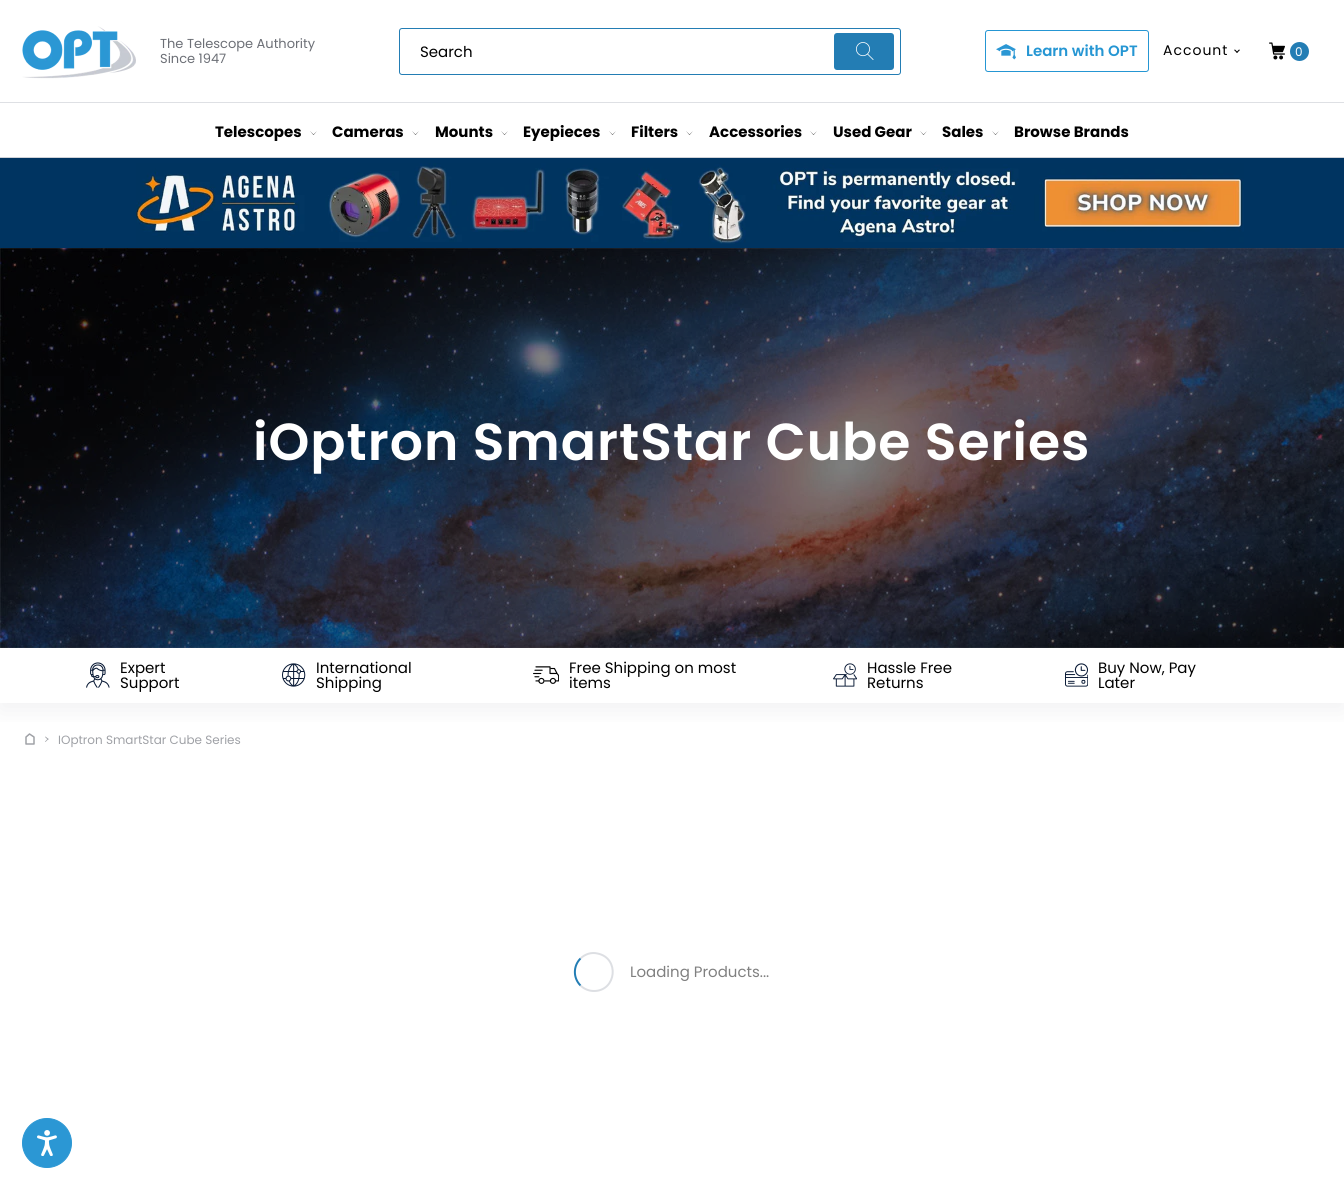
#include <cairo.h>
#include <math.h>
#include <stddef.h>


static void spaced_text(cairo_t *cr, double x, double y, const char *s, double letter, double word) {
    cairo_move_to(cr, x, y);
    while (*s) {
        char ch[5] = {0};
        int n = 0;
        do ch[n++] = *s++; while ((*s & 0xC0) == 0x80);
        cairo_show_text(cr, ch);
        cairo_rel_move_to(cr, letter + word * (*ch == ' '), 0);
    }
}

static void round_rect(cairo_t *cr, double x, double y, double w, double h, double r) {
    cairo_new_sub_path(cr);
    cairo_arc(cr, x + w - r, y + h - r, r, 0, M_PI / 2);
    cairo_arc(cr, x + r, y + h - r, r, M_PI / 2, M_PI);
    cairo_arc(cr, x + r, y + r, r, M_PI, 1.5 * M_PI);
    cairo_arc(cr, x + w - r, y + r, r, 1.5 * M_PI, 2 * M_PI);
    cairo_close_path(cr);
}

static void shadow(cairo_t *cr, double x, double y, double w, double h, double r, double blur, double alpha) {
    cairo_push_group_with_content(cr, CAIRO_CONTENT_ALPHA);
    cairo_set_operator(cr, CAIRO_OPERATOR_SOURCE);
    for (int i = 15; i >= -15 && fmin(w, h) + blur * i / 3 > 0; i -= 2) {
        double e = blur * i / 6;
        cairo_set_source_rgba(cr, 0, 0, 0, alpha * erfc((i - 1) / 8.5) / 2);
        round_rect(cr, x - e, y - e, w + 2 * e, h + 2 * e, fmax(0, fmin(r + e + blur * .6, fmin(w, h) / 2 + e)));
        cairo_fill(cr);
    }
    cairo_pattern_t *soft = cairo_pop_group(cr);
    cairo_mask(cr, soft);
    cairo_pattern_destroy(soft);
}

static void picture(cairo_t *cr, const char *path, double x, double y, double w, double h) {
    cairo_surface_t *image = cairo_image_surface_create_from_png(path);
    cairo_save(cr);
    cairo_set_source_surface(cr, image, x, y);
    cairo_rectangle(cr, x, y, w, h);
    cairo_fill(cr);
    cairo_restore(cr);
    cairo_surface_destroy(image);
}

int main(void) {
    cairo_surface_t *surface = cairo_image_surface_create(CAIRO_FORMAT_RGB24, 1344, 1198);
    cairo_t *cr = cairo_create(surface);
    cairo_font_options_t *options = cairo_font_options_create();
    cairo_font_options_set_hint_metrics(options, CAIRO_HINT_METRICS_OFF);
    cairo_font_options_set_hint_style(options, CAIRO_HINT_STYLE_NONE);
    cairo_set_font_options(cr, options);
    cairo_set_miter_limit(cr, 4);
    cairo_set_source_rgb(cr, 1, 1, 1);
    cairo_paint(cr);
    cairo_set_source_rgb(cr, 0.871, 0.878, 0.894);
    cairo_rectangle(cr, 0, 102, 1344, 1);
    cairo_fill(cr);
    picture(cr, "img1.png", 22, 26, 114, 53);
    cairo_select_font_face(cr, "Poppins", CAIRO_FONT_SLANT_NORMAL, CAIRO_FONT_WEIGHT_NORMAL);
    cairo_set_font_size(cr, 13);
    cairo_set_source_rgb(cr, 0.424, 0.435, 0.463);
    cairo_move_to(cr, 160, 48);
    cairo_show_text(cr, "The Telescope Authority");
    cairo_move_to(cr, 160, 63);
    cairo_show_text(cr, "Since 1947");
    round_rect(cr, 399.5, 28.5, 501, 46, 2.5);
    cairo_set_source_rgb(cr, 0.137, 0.49, 0.706);
    cairo_set_line_width(cr, 1);
    cairo_stroke(cr);
    cairo_set_font_size(cr, 15);
    cairo_set_source_rgb(cr, 0, 0, 0);
    cairo_move_to(cr, 420, 57);
    cairo_show_text(cr, "Search");
    cairo_set_source_rgb(cr, 0.137, 0.49, 0.706);
    round_rect(cr, 834, 33, 60, 37, 3);
    cairo_fill(cr);
    picture(cr, "img2.png", 856, 42, 18, 18);
    round_rect(cr, 985.5, 30.5, 163, 41, 2.5);
    cairo_set_source_rgb(cr, 0.145, 0.588, 0.827);
    cairo_stroke(cr);
    picture(cr, "img3.png", 996, 44, 20, 16);
    cairo_select_font_face(cr, "Poppins SemiBold", CAIRO_FONT_SLANT_NORMAL, CAIRO_FONT_WEIGHT_NORMAL);
    cairo_move_to(cr, 1026, 56);
    cairo_show_text(cr, "Learn with OPT");
    cairo_select_font_face(cr, "Poppins", CAIRO_FONT_SLANT_NORMAL, CAIRO_FONT_WEIGHT_NORMAL);
    cairo_set_font_size(cr, 14);
    cairo_set_source_rgb(cr, 0, 0, 0);
    spaced_text(cr, 1163, 55, "Account", 1, 0);
    cairo_new_path(cr);
    cairo_move_to(cr, 1239, 49.5);
    cairo_line_to(cr, 1240, 50);
    cairo_line_to(cr, 1237, 53);
    cairo_line_to(cr, 1236.5, 52);
    cairo_close_path(cr);
    cairo_fill(cr);
    cairo_new_path(cr);
    cairo_move_to(cr, 1235, 49.5);
    cairo_line_to(cr, 1237.5, 52);
    cairo_line_to(cr, 1237, 53);
    cairo_line_to(cr, 1234, 50);
    cairo_close_path(cr);
    cairo_fill(cr);
    picture(cr, "img4.png", 1269, 42, 16, 18);
    cairo_set_source_rgb(cr, 0.137, 0.49, 0.706);
    cairo_arc(cr, 1299.5, 51.5, 9.5, 0, 2 * M_PI);
    cairo_fill(cr);
    cairo_set_font_size(cr, 12);
    cairo_set_source_rgb(cr, 1, 1, 1);
    spaced_text(cr, 1295, 56, "0", 1, 0);
    cairo_set_source_rgb(cr, 0.812, 0.824, 0.847);
    cairo_rectangle(cr, 0, 157, 1344, 1);
    cairo_fill(cr);
    cairo_select_font_face(cr, "Poppins", CAIRO_FONT_SLANT_NORMAL, CAIRO_FONT_WEIGHT_BOLD);
    cairo_set_font_size(cr, 15);
    cairo_set_source_rgb(cr, 0, 0, 0);
    cairo_move_to(cr, 215, 137);
    cairo_show_text(cr, "Telescopes");
    cairo_new_path(cr);
    cairo_move_to(cr, 313.5, 135);
    cairo_line_to(cr, 310, 131);
    cairo_line_to(cr, 313.5, 134.5);
    cairo_line_to(cr, 317, 131);
    cairo_close_path(cr);
    cairo_fill(cr);
    cairo_move_to(cr, 332, 137);
    cairo_show_text(cr, "Cameras");
    cairo_new_path(cr);
    cairo_move_to(cr, 415.5, 135);
    cairo_line_to(cr, 412, 131);
    cairo_line_to(cr, 415.5, 134.5);
    cairo_line_to(cr, 419, 131);
    cairo_close_path(cr);
    cairo_fill(cr);
    cairo_move_to(cr, 435, 137);
    cairo_show_text(cr, "Mounts");
    cairo_new_path(cr);
    cairo_move_to(cr, 504.5, 135);
    cairo_line_to(cr, 501, 131);
    cairo_line_to(cr, 504.5, 134.5);
    cairo_line_to(cr, 508, 131);
    cairo_close_path(cr);
    cairo_fill(cr);
    cairo_move_to(cr, 523, 137);
    cairo_show_text(cr, "Eyepieces");
    cairo_new_path(cr);
    cairo_move_to(cr, 612.5, 135);
    cairo_line_to(cr, 609, 131);
    cairo_line_to(cr, 612.5, 134.5);
    cairo_line_to(cr, 616, 131);
    cairo_close_path(cr);
    cairo_fill(cr);
    cairo_move_to(cr, 631, 137);
    cairo_show_text(cr, "Filters");
    cairo_new_path(cr);
    cairo_move_to(cr, 689.5, 135);
    cairo_line_to(cr, 686, 131);
    cairo_line_to(cr, 689.5, 134.5);
    cairo_line_to(cr, 693, 131);
    cairo_close_path(cr);
    cairo_fill(cr);
    cairo_move_to(cr, 709, 137);
    cairo_show_text(cr, "Accessories");
    cairo_new_path(cr);
    cairo_move_to(cr, 813.5, 135);
    cairo_line_to(cr, 810, 131);
    cairo_line_to(cr, 813.5, 134.5);
    cairo_line_to(cr, 817, 131);
    cairo_close_path(cr);
    cairo_fill(cr);
    cairo_move_to(cr, 833, 137);
    cairo_show_text(cr, "Used Gear");
    cairo_new_path(cr);
    cairo_move_to(cr, 923.5, 135);
    cairo_line_to(cr, 920, 131);
    cairo_line_to(cr, 923.5, 134.5);
    cairo_line_to(cr, 927, 131);
    cairo_close_path(cr);
    cairo_fill(cr);
    cairo_move_to(cr, 942, 137);
    cairo_show_text(cr, "Sales");
    cairo_new_path(cr);
    cairo_move_to(cr, 995.5, 135);
    cairo_line_to(cr, 992, 131);
    cairo_line_to(cr, 995.5, 134.5);
    cairo_line_to(cr, 999, 131);
    cairo_close_path(cr);
    cairo_fill(cr);
    cairo_move_to(cr, 1014, 137);
    cairo_show_text(cr, "Browse Brands");
    cairo_set_source_rgb(cr, 0, 0.204, 0.38);
    cairo_rectangle(cr, 0, 158, 1344, 90);
    cairo_fill(cr);
    picture(cr, "img5.png", 136, 163, 1108, 81);
    cairo_save(cr);
    cairo_rectangle(cr, 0, 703, 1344, 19);
    cairo_clip(cr);
    cairo_set_source_rgb(cr, 0.518, 0.541, 0.584);
    shadow(cr, 0, 655, 1344, 55, 0, 12.5, 0.12);
    cairo_restore(cr);
    picture(cr, "img6.png", 0, 248, 1344, 400);
    cairo_select_font_face(cr, "Poppins SemiBold", CAIRO_FONT_SLANT_NORMAL, CAIRO_FONT_WEIGHT_NORMAL);
    cairo_set_font_size(cr, 52);
    cairo_set_source_rgb(cr, 1, 1, 1);
    spaced_text(cr, 253, 460, "iOptron SmartStar Cube Series", 1, 0);
    picture(cr, "img7.png", 86, 662, 24, 26);
    cairo_select_font_face(cr, "Poppins", CAIRO_FONT_SLANT_NORMAL, CAIRO_FONT_WEIGHT_NORMAL);
    cairo_set_font_size(cr, 15);
    cairo_set_source_rgb(cr, 0, 0, 0);
    cairo_move_to(cr, 120, 673);
    cairo_show_text(cr, "Expert");
    cairo_move_to(cr, 120, 688);
    cairo_show_text(cr, "Support");
    picture(cr, "img8.png", 282, 663, 24, 24);
    cairo_move_to(cr, 316, 673);
    cairo_show_text(cr, "International");
    cairo_move_to(cr, 316, 688);
    cairo_show_text(cr, "Shipping");
    picture(cr, "img9.png", 533, 666, 26, 18);
    cairo_move_to(cr, 569, 673);
    cairo_show_text(cr, "Free Shipping on most");
    cairo_move_to(cr, 569, 688);
    cairo_show_text(cr, "items");
    picture(cr, "img10.png", 833, 663, 24, 24);
    cairo_move_to(cr, 867, 673);
    cairo_show_text(cr, "Hassle Free");
    cairo_move_to(cr, 867, 688);
    cairo_show_text(cr, "Returns");
    picture(cr, "img11.png", 1065, 663, 23, 24);
    cairo_move_to(cr, 1098, 673);
    cairo_show_text(cr, "Buy Now, Pay");
    cairo_move_to(cr, 1098, 688);
    cairo_show_text(cr, "Later");
    cairo_new_path(cr);
    cairo_move_to(cr, 26, 737);
    cairo_line_to(cr, 29.5, 734);
    cairo_line_to(cr, 34, 737);
    cairo_line_to(cr, 34, 744);
    cairo_line_to(cr, 26, 744);
    cairo_close_path(cr);
    cairo_set_source_rgb(cr, 0.624, 0.631, 0.651);
    cairo_set_line_width(cr, 1.5);
    cairo_set_line_join(cr, CAIRO_LINE_JOIN_ROUND);
    cairo_stroke(cr);
    cairo_new_path(cr);
    cairo_move_to(cr, 45, 737);
    cairo_line_to(cr, 45.5, 736.5);
    cairo_line_to(cr, 48.5, 739);
    cairo_line_to(cr, 48, 740);
    cairo_close_path(cr);
    cairo_fill(cr);
    cairo_new_path(cr);
    cairo_move_to(cr, 45, 741.5);
    cairo_line_to(cr, 48, 738.5);
    cairo_line_to(cr, 48.5, 739);
    cairo_line_to(cr, 45.5, 742);
    cairo_close_path(cr);
    cairo_fill(cr);
    cairo_set_font_size(cr, 12);
    cairo_move_to(cr, 58, 744);
    cairo_show_text(cr, "IOptron SmartStar Cube Series");
    cairo_new_path(cr);
    cairo_move_to(cr, 580.5, 958.5);
    cairo_curve_to(cr, 585, 954, 591.5, 952, 597.5, 953.5);
    cairo_curve_to(cr, 620, 958, 616.5, 991, 594, 991);
    cairo_curve_to(cr, 589, 991, 584, 989, 580.5, 985.5);
    cairo_set_source_rgb(cr, 0.867, 0.875, 0.89);
    cairo_set_line_width(cr, 2);
    cairo_set_line_join(cr, CAIRO_LINE_JOIN_MITER);
    cairo_stroke(cr);
    cairo_new_path(cr);
    cairo_move_to(cr, 580.5, 985.5);
    cairo_curve_to(cr, 573, 978, 573, 966, 580.5, 958.5);
    cairo_set_source_rgb(cr, 0.137, 0.49, 0.706);
    cairo_stroke(cr);
    cairo_set_font_size(cr, 15);
    cairo_set_source_rgb(cr, 0.502, 0.502, 0.502);
    cairo_move_to(cr, 630, 977);
    cairo_show_text(cr, "Loading Products...");
    cairo_set_source_rgb(cr, 0.169, 0.592, 0.831);
    cairo_new_path(cr);
    cairo_arc(cr, 47, 1143, 24.5, 0, 2 * M_PI);
    cairo_fill_preserve(cr);
    cairo_set_line_width(cr, 1);
    cairo_stroke(cr);
    picture(cr, "img12.png", 37, 1130, 20, 26);
    cairo_surface_write_to_png(surface, "page.png");
    cairo_font_options_destroy(options);
    cairo_destroy(cr);
    cairo_surface_destroy(surface);
    return 0;
}
